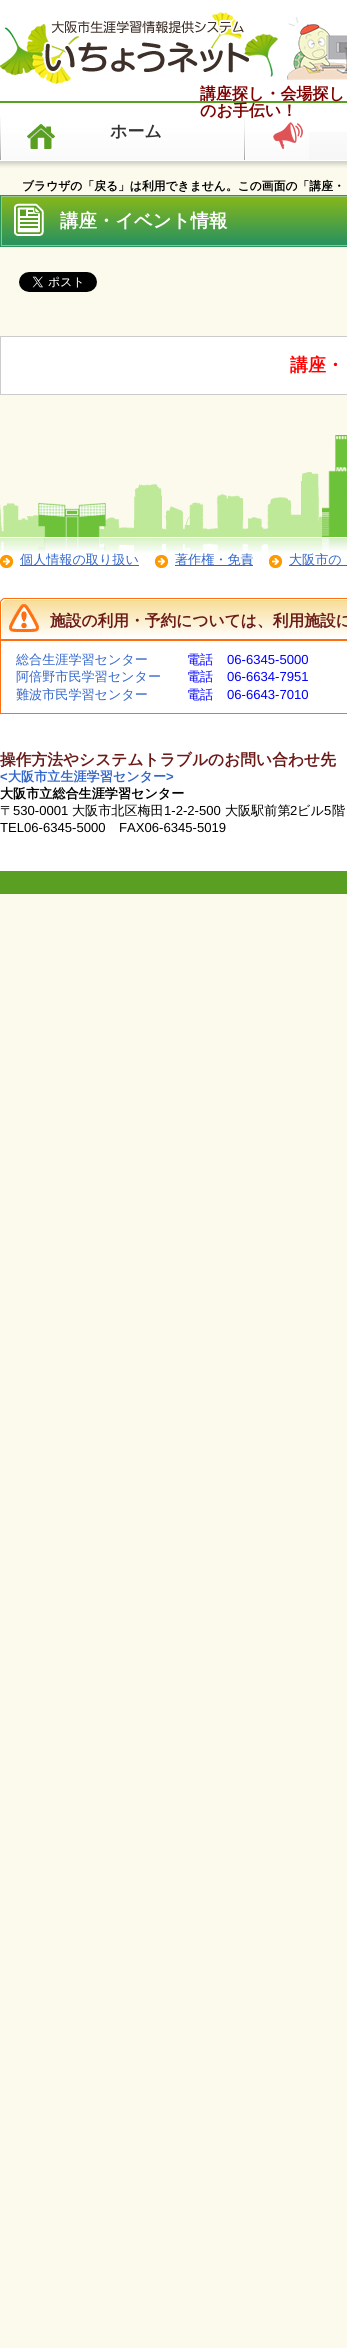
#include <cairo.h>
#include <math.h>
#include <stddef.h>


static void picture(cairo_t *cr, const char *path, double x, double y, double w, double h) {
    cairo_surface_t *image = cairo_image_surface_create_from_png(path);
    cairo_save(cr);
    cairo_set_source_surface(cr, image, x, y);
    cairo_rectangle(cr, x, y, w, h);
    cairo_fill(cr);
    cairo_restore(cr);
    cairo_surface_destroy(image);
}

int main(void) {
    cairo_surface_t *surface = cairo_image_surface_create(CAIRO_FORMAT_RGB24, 347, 2348);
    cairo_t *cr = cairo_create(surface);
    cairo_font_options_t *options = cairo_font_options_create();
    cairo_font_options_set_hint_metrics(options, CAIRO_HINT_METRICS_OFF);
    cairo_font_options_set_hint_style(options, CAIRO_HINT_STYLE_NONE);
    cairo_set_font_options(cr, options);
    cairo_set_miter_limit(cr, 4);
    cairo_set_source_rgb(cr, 0.984, 0.98, 0.925);
    cairo_paint(cr);
    cairo_set_source_rgb(cr, 1, 1, 1);
    cairo_rectangle(cr, 0, 0, 347, 132);
    cairo_fill(cr);
    cairo_set_source_rgb(cr, 0.349, 0.627, 0.133);
    cairo_rectangle(cr, 0, 101, 347, 2);
    cairo_fill(cr);
    cairo_select_font_face(cr, "WenQuanYi Zen Hei", CAIRO_FONT_SLANT_NORMAL, CAIRO_FONT_WEIGHT_BOLD);
    cairo_set_font_size(cr, 16);
    cairo_set_source_rgb(cr, 0.502, 0, 0);
    cairo_move_to(cr, 200, 99);
    cairo_show_text(cr, "講座探し・会場探し");
    picture(cr, "img2.png", 0, 132, 347, 36);
    picture(cr, "img3.png", 0, 117, 245, 43);
    cairo_move_to(cr, 200, 116);
    cairo_show_text(cr, "のお手伝い！");
    picture(cr, "img1.png", 0, 12, 347, 72);
    cairo_set_font_size(cr, 17);
    cairo_set_source_rgb(cr, 0.2, 0.2, 0.2);
    cairo_move_to(cr, 110, 137);
    cairo_show_text(cr, "ホーム");
    picture(cr, "img4.png", 245, 122, 64, 38);
    cairo_set_font_size(cr, 11.8);
    cairo_set_source_rgb(cr, 0, 0, 0);
    cairo_move_to(cr, 22, 190);
    cairo_show_text(cr, "ブラウザの「戻る」は利用できません。この画面の「講座・");
    picture(cr, "img5.png", 0, 195, 347, 52);
    cairo_set_font_size(cr, 18.4);
    cairo_set_source_rgb(cr, 1, 1, 1);
    cairo_move_to(cr, 60, 227);
    cairo_show_text(cr, "講座・イベント情報");
    picture(cr, "img6.png", 19, 272, 78, 20);
    cairo_rectangle(cr, 0.5, 336.5, 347, 58);
    cairo_fill_preserve(cr);
    cairo_set_source_rgb(cr, 0.8, 0.8, 0.8);
    cairo_set_line_width(cr, 1);
    cairo_stroke(cr);
    cairo_set_font_size(cr, 18);
    cairo_set_source_rgb(cr, 1, 0, 0);
    cairo_move_to(cr, 290, 371);
    cairo_show_text(cr, "講座・");
    cairo_set_source_rgb(cr, 1, 1, 1);
    cairo_rectangle(cr, 0, 553, 347, 318);
    cairo_fill(cr);
    picture(cr, "img7.png", 0, 435, 347, 118);
    picture(cr, "img8.png", 0, 555, 13, 13);
    cairo_set_source_rgb(cr, 0.2, 0.4, 0.8);
    cairo_rectangle(cr, 20, 565, 119, 1);
    cairo_fill(cr);
    cairo_select_font_face(cr, "WenQuanYi Zen Hei Medium", CAIRO_FONT_SLANT_NORMAL, CAIRO_FONT_WEIGHT_NORMAL);
    cairo_set_font_size(cr, 13.1);
    cairo_move_to(cr, 20, 564);
    cairo_show_text(cr, "個人情報の取り扱い");
    picture(cr, "img8.png", 155, 555, 13, 13);
    cairo_rectangle(cr, 175, 565, 78, 1);
    cairo_fill(cr);
    cairo_move_to(cr, 175, 564);
    cairo_show_text(cr, "著作権・免責");
    picture(cr, "img8.png", 269, 555, 13, 13);
    cairo_rectangle(cr, 289, 565, 58, 1);
    cairo_fill(cr);
    cairo_move_to(cr, 289, 564);
    cairo_show_text(cr, "大阪市の");
    picture(cr, "img9.png", 0, 598, 347, 41);
    cairo_select_font_face(cr, "WenQuanYi Zen Hei", CAIRO_FONT_SLANT_NORMAL, CAIRO_FONT_WEIGHT_BOLD);
    cairo_set_font_size(cr, 15.75);
    cairo_set_source_rgb(cr, 0.416, 0.098, 0.09);
    cairo_move_to(cr, 50, 626);
    cairo_show_text(cr, "施設の利用・予約については、利用施設に");
    cairo_set_source_rgb(cr, 1, 0.435, 0.059);
    cairo_rectangle(cr, 0, 639, 347, 2);
    cairo_fill(cr);
    cairo_rectangle(cr, 0, 713, 347, 1);
    cairo_fill(cr);
    cairo_rectangle(cr, 0, 639, 1, 75);
    cairo_fill(cr);
    cairo_select_font_face(cr, "WenQuanYi Zen Hei Medium", CAIRO_FONT_SLANT_NORMAL, CAIRO_FONT_WEIGHT_NORMAL);
    cairo_set_font_size(cr, 13.1);
    cairo_set_source_rgb(cr, 0.2, 0.4, 0.8);
    cairo_move_to(cr, 16, 664);
    cairo_show_text(cr, "総合生涯学習センター");
    cairo_set_source_rgb(cr, 0, 0, 1);
    cairo_move_to(cr, 187, 664);
    cairo_show_text(cr, "電話");
    cairo_select_font_face(cr, "Liberation Sans", CAIRO_FONT_SLANT_NORMAL, CAIRO_FONT_WEIGHT_NORMAL);
    cairo_move_to(cr, 227, 664);
    cairo_show_text(cr, "06-6345-5000");
    cairo_select_font_face(cr, "WenQuanYi Zen Hei Medium", CAIRO_FONT_SLANT_NORMAL, CAIRO_FONT_WEIGHT_NORMAL);
    cairo_set_source_rgb(cr, 0.2, 0.4, 0.8);
    cairo_move_to(cr, 16, 681);
    cairo_show_text(cr, "阿倍野市民学習センター");
    cairo_set_source_rgb(cr, 0, 0, 1);
    cairo_move_to(cr, 187, 681);
    cairo_show_text(cr, "電話");
    cairo_select_font_face(cr, "Liberation Sans", CAIRO_FONT_SLANT_NORMAL, CAIRO_FONT_WEIGHT_NORMAL);
    cairo_move_to(cr, 227, 681);
    cairo_show_text(cr, "06-6634-7951");
    cairo_select_font_face(cr, "WenQuanYi Zen Hei Medium", CAIRO_FONT_SLANT_NORMAL, CAIRO_FONT_WEIGHT_NORMAL);
    cairo_set_source_rgb(cr, 0.2, 0.4, 0.8);
    cairo_move_to(cr, 16, 699);
    cairo_show_text(cr, "難波市民学習センター");
    cairo_set_source_rgb(cr, 0, 0, 1);
    cairo_move_to(cr, 187, 699);
    cairo_show_text(cr, "電話");
    cairo_select_font_face(cr, "Liberation Sans", CAIRO_FONT_SLANT_NORMAL, CAIRO_FONT_WEIGHT_NORMAL);
    cairo_move_to(cr, 227, 699);
    cairo_show_text(cr, "06-6643-7010");
    cairo_select_font_face(cr, "WenQuanYi Zen Hei", CAIRO_FONT_SLANT_NORMAL, CAIRO_FONT_WEIGHT_BOLD);
    cairo_set_font_size(cr, 15.75);
    cairo_set_source_rgb(cr, 0.416, 0.098, 0.09);
    cairo_move_to(cr, 0, 765);
    cairo_show_text(cr, "操作方法やシステムトラブルのお問い合わせ先");
    cairo_select_font_face(cr, "Liberation Sans", CAIRO_FONT_SLANT_NORMAL, CAIRO_FONT_WEIGHT_BOLD);
    cairo_set_font_size(cr, 13.1);
    cairo_set_source_rgb(cr, 0.2, 0.4, 0.8);
    cairo_move_to(cr, 0, 781);
    cairo_show_text(cr, "<");
    cairo_select_font_face(cr, "WenQuanYi Zen Hei", CAIRO_FONT_SLANT_NORMAL, CAIRO_FONT_WEIGHT_BOLD);
    cairo_move_to(cr, 8, 781);
    cairo_show_text(cr, "大阪市立生涯学習センター");
    cairo_select_font_face(cr, "Liberation Sans", CAIRO_FONT_SLANT_NORMAL, CAIRO_FONT_WEIGHT_BOLD);
    cairo_move_to(cr, 166, 781);
    cairo_show_text(cr, ">");
    cairo_select_font_face(cr, "WenQuanYi Zen Hei", CAIRO_FONT_SLANT_NORMAL, CAIRO_FONT_WEIGHT_BOLD);
    cairo_set_source_rgb(cr, 0, 0, 0);
    cairo_move_to(cr, 0, 798);
    cairo_show_text(cr, "大阪市立総合生涯学習センター");
    cairo_select_font_face(cr, "WenQuanYi Zen Hei Medium", CAIRO_FONT_SLANT_NORMAL, CAIRO_FONT_WEIGHT_NORMAL);
    cairo_move_to(cr, 0, 815);
    cairo_show_text(cr, "〒");
    cairo_select_font_face(cr, "Liberation Sans", CAIRO_FONT_SLANT_NORMAL, CAIRO_FONT_WEIGHT_NORMAL);
    cairo_move_to(cr, 13, 815);
    cairo_show_text(cr, "530-0001");
    cairo_select_font_face(cr, "WenQuanYi Zen Hei Medium", CAIRO_FONT_SLANT_NORMAL, CAIRO_FONT_WEIGHT_NORMAL);
    cairo_move_to(cr, 72, 815);
    cairo_show_text(cr, "大阪市北区梅田");
    cairo_select_font_face(cr, "Liberation Sans", CAIRO_FONT_SLANT_NORMAL, CAIRO_FONT_WEIGHT_NORMAL);
    cairo_move_to(cr, 164, 815);
    cairo_show_text(cr, "1-2-2-500");
    cairo_select_font_face(cr, "WenQuanYi Zen Hei Medium", CAIRO_FONT_SLANT_NORMAL, CAIRO_FONT_WEIGHT_NORMAL);
    cairo_move_to(cr, 225, 815);
    cairo_show_text(cr, "大阪駅前第");
    cairo_select_font_face(cr, "Liberation Sans", CAIRO_FONT_SLANT_NORMAL, CAIRO_FONT_WEIGHT_NORMAL);
    cairo_move_to(cr, 290, 815);
    cairo_show_text(cr, "2");
    cairo_select_font_face(cr, "WenQuanYi Zen Hei Medium", CAIRO_FONT_SLANT_NORMAL, CAIRO_FONT_WEIGHT_NORMAL);
    cairo_move_to(cr, 297, 815);
    cairo_show_text(cr, "ビル");
    cairo_select_font_face(cr, "Liberation Sans", CAIRO_FONT_SLANT_NORMAL, CAIRO_FONT_WEIGHT_NORMAL);
    cairo_move_to(cr, 324, 815);
    cairo_show_text(cr, "5");
    cairo_select_font_face(cr, "WenQuanYi Zen Hei Medium", CAIRO_FONT_SLANT_NORMAL, CAIRO_FONT_WEIGHT_NORMAL);
    cairo_move_to(cr, 332, 815);
    cairo_show_text(cr, "階");
    cairo_select_font_face(cr, "Liberation Sans", CAIRO_FONT_SLANT_NORMAL, CAIRO_FONT_WEIGHT_NORMAL);
    cairo_move_to(cr, 0, 832);
    cairo_show_text(cr, "TEL06-6345-5000");
    cairo_move_to(cr, 119, 832);
    cairo_show_text(cr, "FAX06-6345-5019");
    cairo_set_source_rgb(cr, 0.349, 0.627, 0.133);
    cairo_rectangle(cr, 0, 871, 347, 23);
    cairo_fill(cr);
    cairo_surface_write_to_png(surface, "page.png");
    cairo_font_options_destroy(options);
    cairo_destroy(cr);
    cairo_surface_destroy(surface);
    return 0;
}
